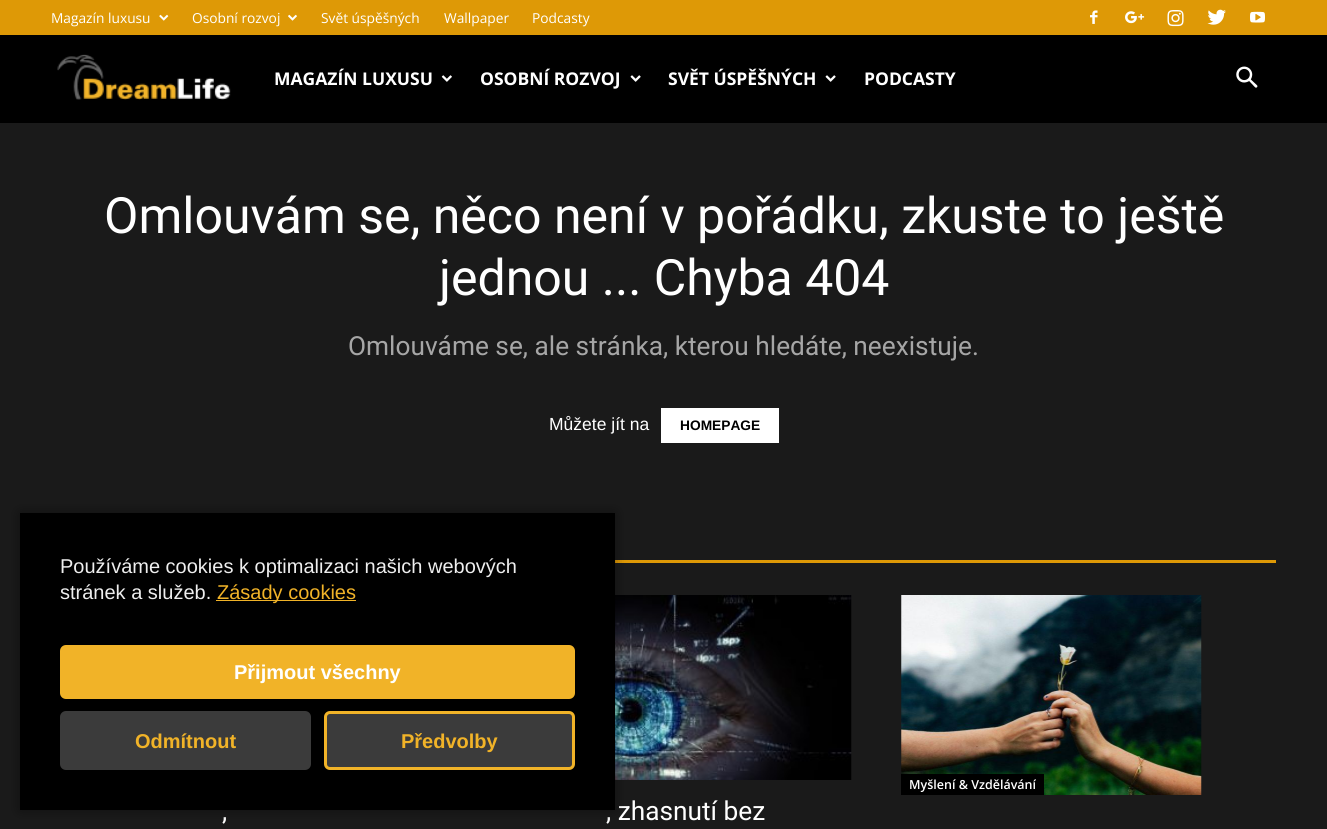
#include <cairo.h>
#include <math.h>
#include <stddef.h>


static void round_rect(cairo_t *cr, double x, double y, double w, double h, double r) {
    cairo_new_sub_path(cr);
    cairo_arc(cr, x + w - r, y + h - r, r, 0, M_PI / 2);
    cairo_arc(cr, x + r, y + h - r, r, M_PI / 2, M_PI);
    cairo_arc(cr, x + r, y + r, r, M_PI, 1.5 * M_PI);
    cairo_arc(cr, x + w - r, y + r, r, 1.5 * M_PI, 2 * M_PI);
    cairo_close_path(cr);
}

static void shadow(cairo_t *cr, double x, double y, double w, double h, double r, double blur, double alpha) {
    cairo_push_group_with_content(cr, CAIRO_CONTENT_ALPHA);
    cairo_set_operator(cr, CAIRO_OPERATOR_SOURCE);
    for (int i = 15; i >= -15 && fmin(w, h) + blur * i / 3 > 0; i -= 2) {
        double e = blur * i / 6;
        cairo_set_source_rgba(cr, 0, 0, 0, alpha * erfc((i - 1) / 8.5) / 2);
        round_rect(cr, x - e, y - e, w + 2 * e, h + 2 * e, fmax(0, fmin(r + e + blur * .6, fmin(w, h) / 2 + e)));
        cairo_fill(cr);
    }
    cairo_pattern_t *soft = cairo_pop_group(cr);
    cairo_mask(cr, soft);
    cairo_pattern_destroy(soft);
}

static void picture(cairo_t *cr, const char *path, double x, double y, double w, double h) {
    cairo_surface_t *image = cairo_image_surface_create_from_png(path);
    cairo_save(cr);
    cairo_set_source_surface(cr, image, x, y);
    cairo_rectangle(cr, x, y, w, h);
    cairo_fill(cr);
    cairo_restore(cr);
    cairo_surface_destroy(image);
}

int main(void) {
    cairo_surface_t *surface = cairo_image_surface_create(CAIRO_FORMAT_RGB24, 1327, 829);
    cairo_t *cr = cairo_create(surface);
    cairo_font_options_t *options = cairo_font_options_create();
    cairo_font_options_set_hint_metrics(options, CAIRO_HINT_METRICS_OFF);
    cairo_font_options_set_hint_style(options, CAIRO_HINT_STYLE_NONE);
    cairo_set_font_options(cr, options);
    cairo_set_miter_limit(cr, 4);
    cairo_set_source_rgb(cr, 0.102, 0.102, 0.102);
    cairo_paint(cr);
    cairo_set_source_rgb(cr, 0.871, 0.6, 0.024);
    cairo_rectangle(cr, 0, 0, 1327, 35);
    cairo_fill(cr);
    cairo_select_font_face(cr, "Open Sans", CAIRO_FONT_SLANT_NORMAL, CAIRO_FONT_WEIGHT_NORMAL);
    cairo_set_font_size(cr, 13.75);
    cairo_set_source_rgb(cr, 1, 1, 1);
    cairo_move_to(cr, 51, 23);
    cairo_show_text(cr, "Magazín luxusu");
    picture(cr, "img1.png", 159, 14, 10, 7);
    cairo_move_to(cr, 192, 23);
    cairo_show_text(cr, "Osobní rozvoj");
    picture(cr, "img2.png", 288, 14, 9, 7);
    cairo_move_to(cr, 321, 23);
    cairo_show_text(cr, "Svět úspěšných");
    cairo_move_to(cr, 444, 23);
    cairo_show_text(cr, "Wallpaper");
    cairo_move_to(cr, 532, 23);
    cairo_show_text(cr, "Podcasty");
    picture(cr, "img3.png", 1090, 10, 8, 14);
    picture(cr, "img4.png", 1125, 11, 20, 13);
    picture(cr, "img5.png", 1167, 10, 17, 17);
    picture(cr, "img6.png", 1207, 9, 19, 16);
    picture(cr, "img7.png", 1250, 11, 15, 12);
    cairo_set_source_rgb(cr, 0, 0, 0);
    cairo_rectangle(cr, 0, 35, 1327, 88);
    cairo_fill(cr);
    picture(cr, "img8.png", 57, 54, 174, 46);
    cairo_select_font_face(cr, "Open Sans", CAIRO_FONT_SLANT_NORMAL, CAIRO_FONT_WEIGHT_BOLD);
    cairo_set_font_size(cr, 17.5);
    cairo_set_source_rgb(cr, 1, 1, 1);
    cairo_move_to(cr, 274, 85);
    cairo_show_text(cr, "MAGAZÍN LUXUSU");
    picture(cr, "img9.png", 441, 75, 11, 7);
    cairo_move_to(cr, 480, 85);
    cairo_show_text(cr, "OSOBNÍ ROZVOJ");
    picture(cr, "img10.png", 630, 75, 11, 7);
    cairo_move_to(cr, 668, 85);
    cairo_show_text(cr, "SVĚT ÚSPĚŠNÝCH");
    picture(cr, "img10.png", 825, 75, 11, 7);
    cairo_move_to(cr, 864, 85);
    cairo_show_text(cr, "PODCASTY");
    picture(cr, "img11.png", 1236, 66, 22, 22);
    cairo_select_font_face(cr, "Roboto", CAIRO_FONT_SLANT_NORMAL, CAIRO_FONT_WEIGHT_NORMAL);
    cairo_set_font_size(cr, 50);
    cairo_move_to(cr, 104, 233);
    cairo_show_text(cr, "Omlouvám se, něco není v pořádku, zkuste to ještě");
    cairo_move_to(cr, 439, 295);
    cairo_show_text(cr, "jednou ... Chyba 404");
    cairo_set_font_size(cr, 26.25);
    cairo_set_source_rgb(cr, 0.651, 0.651, 0.651);
    cairo_move_to(cr, 348, 355);
    cairo_show_text(cr, "Omlouváme se, ale stránka, kterou hledáte, neexistuje.");
    cairo_select_font_face(cr, "Liberation Sans", CAIRO_FONT_SLANT_NORMAL, CAIRO_FONT_WEIGHT_NORMAL);
    cairo_set_font_size(cr, 17.5);
    cairo_set_source_rgb(cr, 1, 1, 1);
    cairo_move_to(cr, 549, 430);
    cairo_show_text(cr, "Můžete jít na");
    cairo_rectangle(cr, 661, 408, 118, 35);
    cairo_fill(cr);
    cairo_select_font_face(cr, "Liberation Sans", CAIRO_FONT_SLANT_NORMAL, CAIRO_FONT_WEIGHT_BOLD);
    cairo_set_font_size(cr, 13.75);
    cairo_set_source_rgb(cr, 0, 0, 0);
    cairo_move_to(cr, 680, 430);
    cairo_show_text(cr, "HOMEPAGE");
    cairo_set_source_rgb(cr, 0.871, 0.6, 0.024);
    cairo_rectangle(cr, 615, 560, 661, 3);
    cairo_fill(cr);
    picture(cr, "img12.png", 901, 595, 301, 200);
    cairo_set_source_rgb(cr, 0, 0, 0);
    cairo_rectangle(cr, 901, 774, 143, 21);
    cairo_fill(cr);
    cairo_select_font_face(cr, "Open Sans SemiBold", CAIRO_FONT_SLANT_NORMAL, CAIRO_FONT_WEIGHT_NORMAL);
    cairo_set_font_size(cr, 12.5);
    cairo_set_source_rgb(cr, 1, 1, 1);
    cairo_move_to(cr, 909, 789);
    cairo_show_text(cr, "Myšlení & Vzdělávání");
    cairo_select_font_face(cr, "Roboto", CAIRO_FONT_SLANT_NORMAL, CAIRO_FONT_WEIGHT_NORMAL);
    cairo_set_font_size(cr, 26.25);
    cairo_move_to(cr, 222, 820);
    cairo_show_text(cr, ",");
    picture(cr, "img13.png", 615, 595, 237, 185);
    cairo_move_to(cr, 606, 820);
    cairo_show_text(cr, ", zhasnutí bez");
    cairo_set_source_rgb(cr, 0, 0, 0);
    shadow(cr, 20, 513, 595, 297, 0, 6, 0.4);
    cairo_set_source_rgb(cr, 0, 0, 0);
    cairo_rectangle(cr, 20, 513, 595, 297);
    cairo_fill(cr);
    cairo_select_font_face(cr, "Liberation Sans", CAIRO_FONT_SLANT_NORMAL, CAIRO_FONT_WEIGHT_NORMAL);
    cairo_set_font_size(cr, 20);
    cairo_set_source_rgb(cr, 0.933, 0.933, 0.933);
    cairo_move_to(cr, 60, 573);
    cairo_show_text(cr, "Používáme cookies k optimalizaci našich webových");
    cairo_move_to(cr, 60, 599);
    cairo_show_text(cr, "stránek a služeb.");
    cairo_set_source_rgb(cr, 0.945, 0.702, 0.157);
    cairo_rectangle(cr, 216, 600, 140, 1);
    cairo_fill(cr);
    cairo_move_to(cr, 217, 599);
    cairo_show_text(cr, "Zásady cookies");
    round_rect(cr, 60, 645, 515, 54, 6);
    cairo_fill(cr);
    cairo_select_font_face(cr, "Liberation Sans", CAIRO_FONT_SLANT_NORMAL, CAIRO_FONT_WEIGHT_BOLD);
    cairo_set_source_rgb(cr, 1, 1, 1);
    cairo_move_to(cr, 234, 679);
    cairo_show_text(cr, "Přijmout všechny");
    cairo_set_source_rgb(cr, 0.231, 0.231, 0.231);
    round_rect(cr, 61.5, 712.5, 248, 56, 4.5);
    cairo_fill_preserve(cr);
    cairo_set_line_width(cr, 3);
    cairo_stroke(cr);
    cairo_set_source_rgb(cr, 0.945, 0.702, 0.157);
    cairo_move_to(cr, 135, 748);
    cairo_show_text(cr, "Odmítnout");
    cairo_set_source_rgb(cr, 0.231, 0.231, 0.231);
    round_rect(cr, 325.5, 712.5, 248, 56, 4.5);
    cairo_fill_preserve(cr);
    cairo_set_source_rgb(cr, 0.945, 0.702, 0.157);
    cairo_stroke(cr);
    cairo_move_to(cr, 401, 748);
    cairo_show_text(cr, "Předvolby");
    cairo_surface_write_to_png(surface, "page.png");
    cairo_font_options_destroy(options);
    cairo_destroy(cr);
    cairo_surface_destroy(surface);
    return 0;
}
